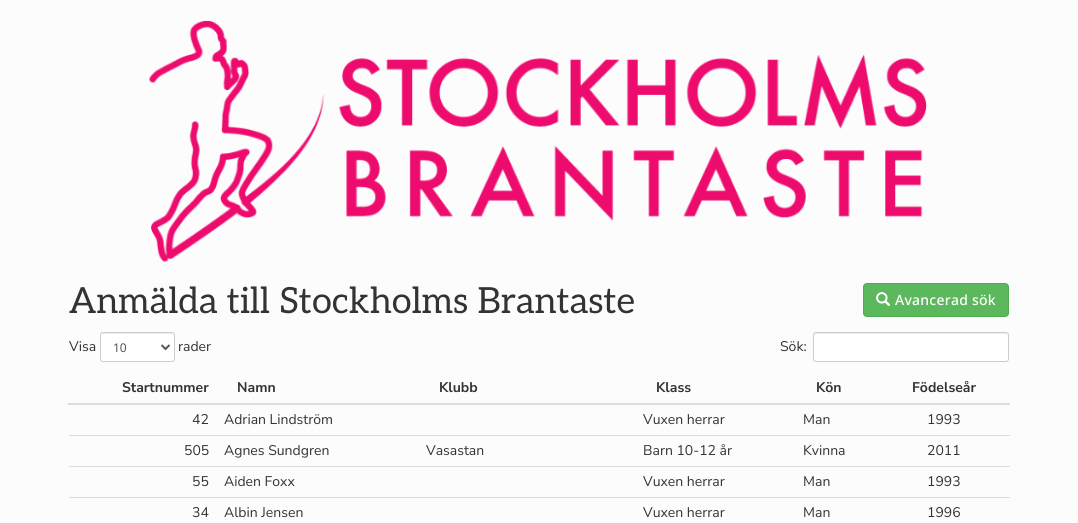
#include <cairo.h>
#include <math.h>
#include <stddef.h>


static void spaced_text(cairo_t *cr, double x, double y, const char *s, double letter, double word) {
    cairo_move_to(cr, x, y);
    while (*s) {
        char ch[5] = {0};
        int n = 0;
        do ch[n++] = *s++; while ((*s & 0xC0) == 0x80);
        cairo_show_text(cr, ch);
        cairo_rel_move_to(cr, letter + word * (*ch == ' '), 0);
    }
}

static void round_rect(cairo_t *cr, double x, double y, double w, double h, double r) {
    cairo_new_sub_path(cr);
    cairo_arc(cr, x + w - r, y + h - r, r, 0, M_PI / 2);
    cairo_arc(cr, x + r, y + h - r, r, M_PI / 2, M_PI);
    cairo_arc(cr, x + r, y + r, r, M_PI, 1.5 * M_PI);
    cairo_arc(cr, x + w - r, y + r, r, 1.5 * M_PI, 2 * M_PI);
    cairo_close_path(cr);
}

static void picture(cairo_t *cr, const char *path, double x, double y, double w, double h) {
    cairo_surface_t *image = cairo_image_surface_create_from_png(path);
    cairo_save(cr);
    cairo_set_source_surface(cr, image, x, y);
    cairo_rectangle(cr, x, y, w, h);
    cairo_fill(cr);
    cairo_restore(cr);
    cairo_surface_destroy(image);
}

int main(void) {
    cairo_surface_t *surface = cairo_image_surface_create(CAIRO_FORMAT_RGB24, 1078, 523);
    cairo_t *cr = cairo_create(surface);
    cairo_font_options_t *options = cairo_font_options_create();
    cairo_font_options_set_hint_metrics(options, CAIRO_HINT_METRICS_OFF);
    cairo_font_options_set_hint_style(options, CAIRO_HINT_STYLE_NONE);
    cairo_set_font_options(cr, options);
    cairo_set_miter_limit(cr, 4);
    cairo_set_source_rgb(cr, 0.988, 0.988, 0.988);
    cairo_paint(cr);
    picture(cr, "img1.png", 149, 20, 778, 243);
    cairo_select_font_face(cr, "Aleo", CAIRO_FONT_SLANT_NORMAL, CAIRO_FONT_WEIGHT_NORMAL);
    cairo_set_font_size(cr, 36);
    cairo_set_source_rgb(cr, 0.2, 0.2, 0.2);
    cairo_move_to(cr, 69, 313);
    cairo_show_text(cr, "Anmälda till Stockholms Brantaste");
    cairo_set_source_rgb(cr, 0.361, 0.722, 0.361);
    round_rect(cr, 863.5, 283.5, 145, 33, 3.5);
    cairo_fill_preserve(cr);
    cairo_set_source_rgb(cr, 0.298, 0.682, 0.298);
    cairo_set_line_width(cr, 1);
    cairo_stroke(cr);
    picture(cr, "img2.png", 876, 292, 15, 14);
    cairo_select_font_face(cr, "Noto Sans Medium", CAIRO_FONT_SLANT_NORMAL, CAIRO_FONT_WEIGHT_NORMAL);
    cairo_set_font_size(cr, 14);
    cairo_set_source_rgb(cr, 1, 1, 1);
    spaced_text(cr, 895, 305, "Avancerad sök", 0.25, 0);
    cairo_select_font_face(cr, "Nunito Sans", CAIRO_FONT_SLANT_NORMAL, CAIRO_FONT_WEIGHT_NORMAL);
    cairo_set_source_rgb(cr, 0.2, 0.2, 0.2);
    cairo_move_to(cr, 69, 351);
    cairo_show_text(cr, "Visa");
    cairo_set_source_rgb(cr, 1, 1, 1);
    round_rect(cr, 100, 332, 75, 30, 3);
    cairo_fill(cr);
    cairo_set_source_rgb(cr, 0.925, 0.925, 0.925);
    cairo_new_path(cr);
    cairo_move_to(cr, 103, 334);
    cairo_line_to(cr, 172, 334);
    cairo_curve_to(cr, 173, 334, 174, 335, 174, 336);
    cairo_curve_to(cr, 174, 330, 164, 333, 160, 333);
    cairo_line_to(cr, 114, 333);
    cairo_curve_to(cr, 111, 333, 101, 330, 101, 336);
    cairo_curve_to(cr, 101, 335, 102, 334, 103, 334);
    cairo_close_path(cr);
    cairo_fill(cr);
    round_rect(cr, 100.5, 332.5, 74, 29, 2.5);
    cairo_set_source_rgb(cr, 0.8, 0.8, 0.8);
    cairo_stroke(cr);
    cairo_new_path(cr);
    cairo_move_to(cr, 161.5, 345);
    cairo_line_to(cr, 165.5, 349);
    cairo_line_to(cr, 169.5, 345);
    cairo_set_source_rgb(cr, 0.333, 0.333, 0.333);
    cairo_set_line_width(cr, 2);
    cairo_stroke(cr);
    cairo_select_font_face(cr, "Noto Sans", CAIRO_FONT_SLANT_NORMAL, CAIRO_FONT_WEIGHT_NORMAL);
    cairo_set_font_size(cr, 12);
    cairo_move_to(cr, 113, 352);
    cairo_show_text(cr, "10");
    cairo_select_font_face(cr, "Nunito Sans", CAIRO_FONT_SLANT_NORMAL, CAIRO_FONT_WEIGHT_NORMAL);
    cairo_set_font_size(cr, 14);
    cairo_set_source_rgb(cr, 0.2, 0.2, 0.2);
    cairo_move_to(cr, 178, 351);
    cairo_show_text(cr, "rader");
    cairo_move_to(cr, 780, 351);
    cairo_show_text(cr, "Sök:");
    cairo_set_source_rgb(cr, 1, 1, 1);
    round_rect(cr, 813, 332, 196, 30, 3);
    cairo_fill(cr);
    cairo_set_source_rgb(cr, 0.925, 0.925, 0.925);
    cairo_new_path(cr);
    cairo_move_to(cr, 816, 334);
    cairo_line_to(cr, 1006, 334);
    cairo_line_to(cr, 1008, 335);
    cairo_line_to(cr, 1008, 336);
    cairo_line_to(cr, 1008, 335);
    cairo_curve_to(cr, 1008, 334, 1007, 333, 1006, 333);
    cairo_line_to(cr, 816, 333);
    cairo_curve_to(cr, 815, 333, 814, 334, 814, 335);
    cairo_line_to(cr, 814, 336);
    cairo_curve_to(cr, 814, 335, 815, 334, 816, 334);
    cairo_close_path(cr);
    cairo_fill(cr);
    round_rect(cr, 813.5, 332.5, 195, 29, 2.5);
    cairo_set_source_rgb(cr, 0.8, 0.8, 0.8);
    cairo_set_line_width(cr, 1);
    cairo_stroke(cr);
    cairo_select_font_face(cr, "Nunito Sans", CAIRO_FONT_SLANT_NORMAL, CAIRO_FONT_WEIGHT_BOLD);
    cairo_set_source_rgb(cr, 0.2, 0.2, 0.2);
    cairo_move_to(cr, 122, 392);
    cairo_show_text(cr, "Startnummer");
    cairo_move_to(cr, 237, 392);
    cairo_show_text(cr, "Namn");
    cairo_move_to(cr, 439, 392);
    cairo_show_text(cr, "Klubb");
    cairo_move_to(cr, 656, 392);
    cairo_show_text(cr, "Klass");
    cairo_move_to(cr, 816, 392);
    cairo_show_text(cr, "Kön");
    cairo_set_source_rgb(cr, 0.867, 0.867, 0.867);
    cairo_rectangle(cr, 68, 403, 942, 2);
    cairo_fill(cr);
    cairo_set_source_rgb(cr, 0.2, 0.2, 0.2);
    cairo_move_to(cr, 912, 392);
    cairo_show_text(cr, "Födelseår");
    cairo_select_font_face(cr, "Nunito Sans", CAIRO_FONT_SLANT_NORMAL, CAIRO_FONT_WEIGHT_NORMAL);
    cairo_move_to(cr, 192, 424);
    cairo_show_text(cr, "42");
    cairo_move_to(cr, 224, 424);
    cairo_show_text(cr, "Adrian Lindström");
    cairo_move_to(cr, 643, 424);
    cairo_show_text(cr, "Vuxen herrar");
    cairo_move_to(cr, 803, 424);
    cairo_show_text(cr, "Man");
    cairo_move_to(cr, 927, 424);
    cairo_show_text(cr, "1993");
    cairo_move_to(cr, 184, 455);
    cairo_show_text(cr, "505");
    cairo_move_to(cr, 224, 455);
    cairo_show_text(cr, "Agnes Sundgren");
    cairo_move_to(cr, 426, 455);
    cairo_show_text(cr, "Vasastan");
    cairo_move_to(cr, 643, 455);
    cairo_show_text(cr, "Barn 10-12 år");
    cairo_move_to(cr, 803, 455);
    cairo_show_text(cr, "Kvinna");
    cairo_set_source_rgb(cr, 0.867, 0.867, 0.867);
    cairo_rectangle(cr, 69, 435, 941, 1);
    cairo_fill(cr);
    cairo_set_source_rgb(cr, 0.2, 0.2, 0.2);
    cairo_move_to(cr, 927, 455);
    cairo_show_text(cr, "2011");
    cairo_move_to(cr, 192, 486);
    cairo_show_text(cr, "55");
    cairo_move_to(cr, 224, 486);
    cairo_show_text(cr, "Aiden Foxx");
    cairo_move_to(cr, 643, 486);
    cairo_show_text(cr, "Vuxen herrar");
    cairo_move_to(cr, 803, 486);
    cairo_show_text(cr, "Man");
    cairo_set_source_rgb(cr, 0.867, 0.867, 0.867);
    cairo_rectangle(cr, 69, 466, 941, 1);
    cairo_fill(cr);
    cairo_set_source_rgb(cr, 0.2, 0.2, 0.2);
    cairo_move_to(cr, 927, 486);
    cairo_show_text(cr, "1993");
    cairo_move_to(cr, 192, 517);
    cairo_show_text(cr, "34");
    cairo_move_to(cr, 224, 517);
    cairo_show_text(cr, "Albin Jensen");
    cairo_move_to(cr, 643, 517);
    cairo_show_text(cr, "Vuxen herrar");
    cairo_move_to(cr, 803, 517);
    cairo_show_text(cr, "Man");
    cairo_set_source_rgb(cr, 0.867, 0.867, 0.867);
    cairo_rectangle(cr, 69, 497, 941, 1);
    cairo_fill(cr);
    cairo_set_source_rgb(cr, 0.2, 0.2, 0.2);
    cairo_move_to(cr, 927, 517);
    cairo_show_text(cr, "1996");
    cairo_surface_write_to_png(surface, "page.png");
    cairo_font_options_destroy(options);
    cairo_destroy(cr);
    cairo_surface_destroy(surface);
    return 0;
}
